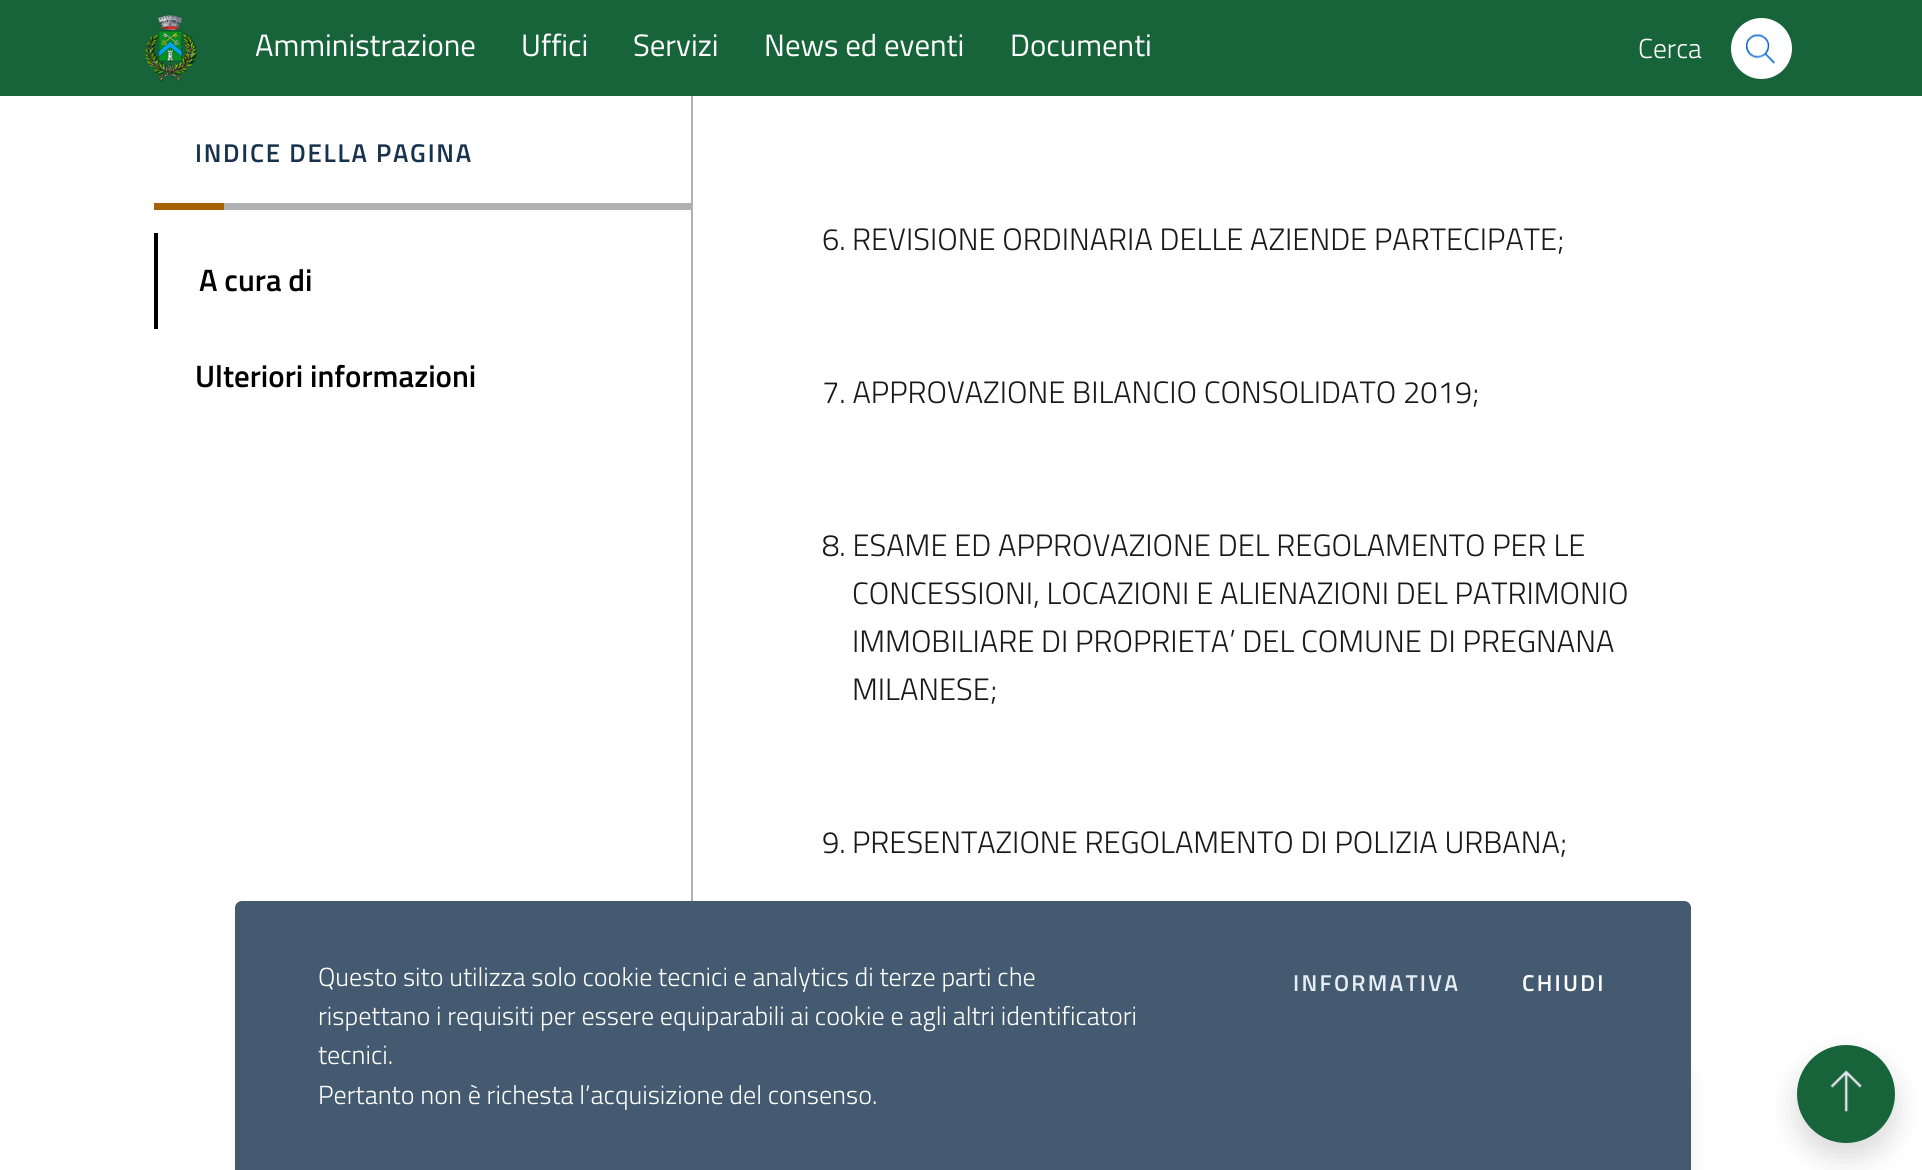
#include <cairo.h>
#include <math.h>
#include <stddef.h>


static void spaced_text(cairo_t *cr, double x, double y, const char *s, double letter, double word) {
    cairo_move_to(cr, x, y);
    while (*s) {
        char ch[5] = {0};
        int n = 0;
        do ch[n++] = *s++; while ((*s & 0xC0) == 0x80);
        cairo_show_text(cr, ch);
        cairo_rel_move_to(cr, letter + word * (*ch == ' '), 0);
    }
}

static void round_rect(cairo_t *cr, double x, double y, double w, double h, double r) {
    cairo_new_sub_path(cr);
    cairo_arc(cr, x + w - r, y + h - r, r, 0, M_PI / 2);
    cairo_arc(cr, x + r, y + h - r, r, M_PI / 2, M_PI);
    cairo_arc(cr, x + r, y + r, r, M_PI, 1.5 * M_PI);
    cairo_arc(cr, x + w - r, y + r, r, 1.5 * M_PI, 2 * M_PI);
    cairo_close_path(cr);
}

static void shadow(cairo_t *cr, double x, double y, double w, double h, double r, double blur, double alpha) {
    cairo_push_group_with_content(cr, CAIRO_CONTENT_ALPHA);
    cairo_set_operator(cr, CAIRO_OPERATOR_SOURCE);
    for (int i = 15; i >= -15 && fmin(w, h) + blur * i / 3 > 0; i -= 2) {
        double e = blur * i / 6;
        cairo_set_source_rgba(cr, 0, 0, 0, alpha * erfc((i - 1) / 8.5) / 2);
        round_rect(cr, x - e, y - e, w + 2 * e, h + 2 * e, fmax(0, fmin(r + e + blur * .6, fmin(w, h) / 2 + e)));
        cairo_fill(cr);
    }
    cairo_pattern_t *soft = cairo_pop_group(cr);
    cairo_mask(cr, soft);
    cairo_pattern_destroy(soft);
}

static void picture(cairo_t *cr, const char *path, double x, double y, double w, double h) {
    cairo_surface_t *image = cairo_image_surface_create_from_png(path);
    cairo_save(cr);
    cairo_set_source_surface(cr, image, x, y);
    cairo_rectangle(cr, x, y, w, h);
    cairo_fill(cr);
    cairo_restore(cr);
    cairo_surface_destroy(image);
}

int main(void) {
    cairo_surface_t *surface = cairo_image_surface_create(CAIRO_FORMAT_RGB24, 1922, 1170);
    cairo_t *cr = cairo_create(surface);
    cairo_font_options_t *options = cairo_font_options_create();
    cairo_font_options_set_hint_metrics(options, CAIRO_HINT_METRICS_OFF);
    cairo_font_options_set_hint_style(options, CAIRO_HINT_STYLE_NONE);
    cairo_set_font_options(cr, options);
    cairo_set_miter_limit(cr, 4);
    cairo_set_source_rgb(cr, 1, 1, 1);
    cairo_paint(cr);
    cairo_set_source_rgb(cr, 0.09, 0.392, 0.231);
    cairo_rectangle(cr, 0, 0, 1922, 96);
    cairo_fill(cr);
    picture(cr, "img1.png", 144, 15, 53, 67);
    cairo_select_font_face(cr, "Titillium Web", CAIRO_FONT_SLANT_NORMAL, CAIRO_FONT_WEIGHT_NORMAL);
    cairo_set_font_size(cr, 30.9);
    cairo_set_source_rgb(cr, 1, 1, 1);
    cairo_move_to(cr, 255, 56);
    cairo_show_text(cr, "Amministrazione");
    cairo_move_to(cr, 521, 56);
    cairo_show_text(cr, "Uffici");
    cairo_move_to(cr, 633, 56);
    cairo_show_text(cr, "Servizi");
    cairo_move_to(cr, 764, 56);
    cairo_show_text(cr, "News ed eventi");
    cairo_move_to(cr, 1010, 56);
    cairo_show_text(cr, "Documenti");
    cairo_select_font_face(cr, "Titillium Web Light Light", CAIRO_FONT_SLANT_NORMAL, CAIRO_FONT_WEIGHT_NORMAL);
    cairo_set_font_size(cr, 27.5);
    cairo_move_to(cr, 1638, 58);
    cairo_show_text(cr, "Cerca");
    cairo_new_path(cr);
    cairo_arc(cr, 1761.5, 48.5, 30.5, 0, 2 * M_PI);
    cairo_fill(cr);
    picture(cr, "img2.png", 1745, 34, 30, 30);
    cairo_set_source_rgb(cr, 0.694, 0.694, 0.702);
    cairo_rectangle(cr, 224, 203, 469, 7);
    cairo_fill(cr);
    cairo_select_font_face(cr, "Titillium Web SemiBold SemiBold", CAIRO_FONT_SLANT_NORMAL, CAIRO_FONT_WEIGHT_NORMAL);
    cairo_set_font_size(cr, 25.75);
    cairo_set_source_rgb(cr, 0.09, 0.196, 0.302);
    spaced_text(cr, 195, 162, "INDICE DELLA PAGINA", 1.75, 0);
    cairo_set_source_rgb(cr, 0.651, 0.388, 0);
    cairo_rectangle(cr, 154, 203, 70, 7);
    cairo_fill(cr);
    cairo_set_source_rgb(cr, 0, 0, 0);
    cairo_rectangle(cr, 154, 233, 4, 96);
    cairo_fill(cr);
    cairo_set_font_size(cr, 30.9);
    cairo_move_to(cr, 199, 291);
    cairo_show_text(cr, "A cura di");
    cairo_move_to(cr, 195, 387);
    cairo_show_text(cr, "Ulteriori informazioni");
    cairo_set_source_rgb(cr, 0.694, 0.694, 0.702);
    cairo_rectangle(cr, 691, 96, 2, 805);
    cairo_fill(cr);
    cairo_select_font_face(cr, "Titillium Web Light Light", CAIRO_FONT_SLANT_NORMAL, CAIRO_FONT_WEIGHT_NORMAL);
    cairo_set_source_rgb(cr, 0.098, 0.098, 0.102);
    cairo_move_to(cr, 822, 250);
    cairo_show_text(cr, "6.");
    cairo_move_to(cr, 852, 250);
    cairo_show_text(cr, "REVISIONE ORDINARIA DELLE AZIENDE PARTECIPATE;");
    cairo_move_to(cr, 822, 403);
    cairo_show_text(cr, "7. APPROVAZIONE BILANCIO CONSOLIDATO 2019;");
    cairo_move_to(cr, 822, 556);
    cairo_show_text(cr, "8. ESAME ED APPROVAZIONE DEL REGOLAMENTO PER LE");
    cairo_move_to(cr, 852, 604);
    cairo_show_text(cr, "CONCESSIONI, LOCAZIONI E ALIENAZIONI DEL PATRIMONIO");
    cairo_move_to(cr, 852, 652);
    cairo_show_text(cr, "IMMOBILIARE DI PROPRIETA’ DEL COMUNE DI PREGNANA");
    cairo_move_to(cr, 852, 700);
    cairo_show_text(cr, "MILANESE;");
    cairo_move_to(cr, 822, 853);
    cairo_show_text(cr, "9.");
    cairo_move_to(cr, 852, 853);
    cairo_show_text(cr, "PRESENTAZIONE REGOLAMENTO DI POLIZIA URBANA;");
    cairo_set_source_rgb(cr, 0, 0, 0);
    shadow(cr, 782, 1075, 900, 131, 7, 14.5, 0.15);
    cairo_set_source_rgb(cr, 0.263, 0.353, 0.439);
    cairo_new_path(cr);
    cairo_move_to(cr, 242, 901);
    cairo_line_to(cr, 1684, 901);
    cairo_curve_to(cr, 1688, 901, 1691, 904, 1691, 908);
    cairo_line_to(cr, 1691, 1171);
    cairo_line_to(cr, 235, 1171);
    cairo_line_to(cr, 235, 908);
    cairo_curve_to(cr, 235, 904, 238, 901, 242, 901);
    cairo_close_path(cr);
    cairo_fill(cr);
    cairo_set_font_size(cr, 26.15);
    cairo_set_source_rgb(cr, 1, 1, 1);
    cairo_move_to(cr, 318, 986);
    cairo_show_text(cr, "Questo sito utilizza solo cookie tecnici e analytics di terze parti che");
    cairo_move_to(cr, 318, 1025);
    cairo_show_text(cr, "rispettano i requisiti per essere equiparabili ai cookie e agli altri identificatori");
    cairo_move_to(cr, 318, 1064);
    cairo_show_text(cr, "tecnici.");
    cairo_move_to(cr, 318, 1104);
    cairo_show_text(cr, "Pertanto non è richesta l’acquisizione del consenso.");
    cairo_select_font_face(cr, "Titillium Web SemiBold SemiBold", CAIRO_FONT_SLANT_NORMAL, CAIRO_FONT_WEIGHT_NORMAL);
    cairo_set_font_size(cr, 23);
    cairo_set_source_rgb(cr, 0.902, 0.925, 0.949);
    spaced_text(cr, 1293, 991, "INFORMATIVA", 2.25, 0);
    cairo_set_source_rgb(cr, 1, 1, 1);
    spaced_text(cr, 1522, 991, "CHIUDI", 2.25, 0);
    cairo_set_source_rgb(cr, 0, 0, 0);
    shadow(cr, 1797, 1059, 98, 98, 49, 14.5, 0.15);
    cairo_set_source_rgb(cr, 0.09, 0.392, 0.231);
    cairo_arc(cr, 1846, 1094, 49, 0, 2 * M_PI);
    cairo_fill(cr);
    picture(cr, "img3.png", 1830, 1070, 33, 42);
    cairo_surface_write_to_png(surface, "page.png");
    cairo_font_options_destroy(options);
    cairo_destroy(cr);
    cairo_surface_destroy(surface);
    return 0;
}
